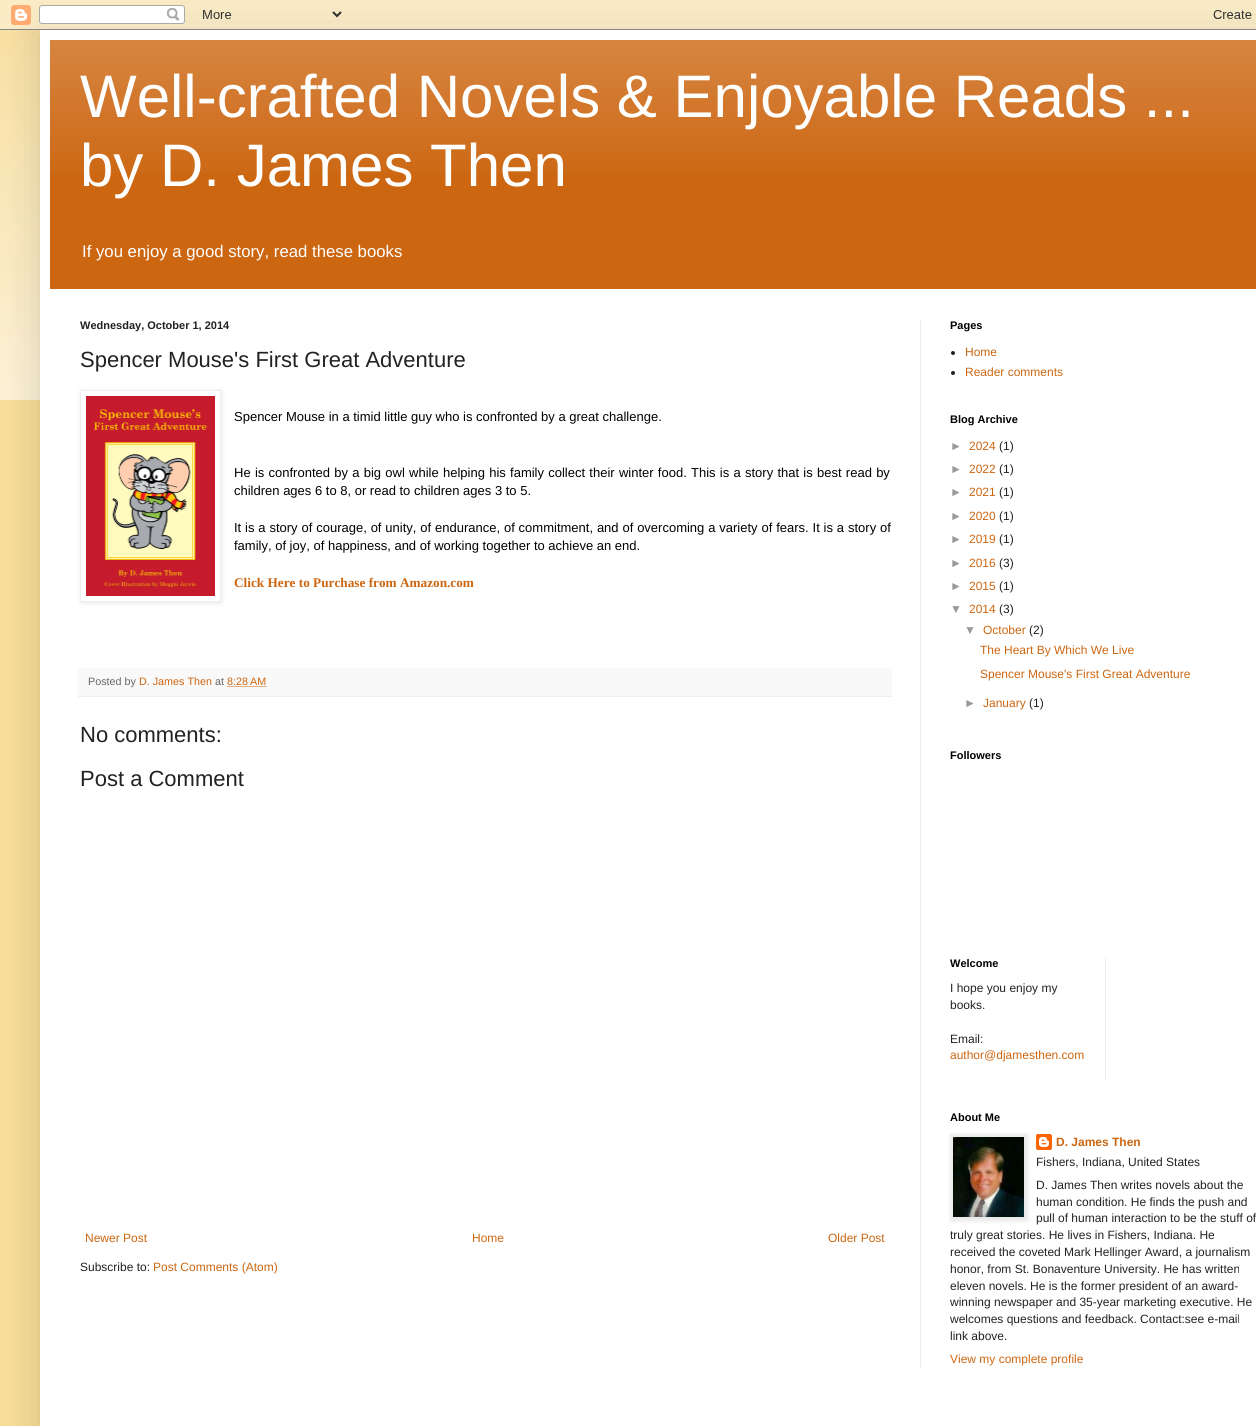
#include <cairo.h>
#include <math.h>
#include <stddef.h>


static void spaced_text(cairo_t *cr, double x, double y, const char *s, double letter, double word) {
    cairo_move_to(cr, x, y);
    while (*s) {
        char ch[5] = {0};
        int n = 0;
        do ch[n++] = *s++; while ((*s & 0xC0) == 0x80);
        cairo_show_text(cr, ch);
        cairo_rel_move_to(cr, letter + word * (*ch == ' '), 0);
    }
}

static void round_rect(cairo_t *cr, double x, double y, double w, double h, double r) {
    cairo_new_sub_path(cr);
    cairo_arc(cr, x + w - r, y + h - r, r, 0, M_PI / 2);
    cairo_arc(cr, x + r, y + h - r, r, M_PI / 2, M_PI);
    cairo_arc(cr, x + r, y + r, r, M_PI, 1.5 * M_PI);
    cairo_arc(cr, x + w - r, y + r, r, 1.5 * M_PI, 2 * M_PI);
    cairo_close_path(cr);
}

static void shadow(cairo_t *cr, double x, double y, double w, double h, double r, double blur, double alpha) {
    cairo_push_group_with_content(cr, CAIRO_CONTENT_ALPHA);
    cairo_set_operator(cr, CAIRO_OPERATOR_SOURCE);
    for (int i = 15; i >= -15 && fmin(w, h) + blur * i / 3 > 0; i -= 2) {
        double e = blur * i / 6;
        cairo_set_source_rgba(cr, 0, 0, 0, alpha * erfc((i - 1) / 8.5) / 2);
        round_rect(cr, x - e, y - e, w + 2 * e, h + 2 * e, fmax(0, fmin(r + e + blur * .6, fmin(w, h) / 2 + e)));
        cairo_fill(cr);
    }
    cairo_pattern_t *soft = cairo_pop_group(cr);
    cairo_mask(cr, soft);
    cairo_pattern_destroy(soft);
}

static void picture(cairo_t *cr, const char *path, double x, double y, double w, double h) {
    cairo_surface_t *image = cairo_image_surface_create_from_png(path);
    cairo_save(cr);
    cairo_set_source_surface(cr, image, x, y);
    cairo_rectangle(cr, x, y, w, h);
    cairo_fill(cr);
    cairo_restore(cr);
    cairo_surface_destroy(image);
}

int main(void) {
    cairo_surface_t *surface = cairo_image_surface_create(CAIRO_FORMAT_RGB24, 1256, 1426);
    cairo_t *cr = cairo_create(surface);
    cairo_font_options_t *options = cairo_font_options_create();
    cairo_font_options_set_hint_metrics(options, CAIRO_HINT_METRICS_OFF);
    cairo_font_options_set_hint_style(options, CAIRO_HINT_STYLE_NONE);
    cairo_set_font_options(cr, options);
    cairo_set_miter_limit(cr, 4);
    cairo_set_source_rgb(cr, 0.969, 0.867, 0.6);
    cairo_paint(cr);
    picture(cr, "img1.png", 0, 0, 1256, 400);
    cairo_set_source_rgb(cr, 0, 0, 0);
    shadow(cr, 40, 30, 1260, 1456, 0, 20, 0.15);
    picture(cr, "img2.png", 0, 0, 1256, 30);
    cairo_set_source_rgb(cr, 1, 1, 1);
    cairo_rectangle(cr, 40, 30, 1216, 1396);
    cairo_fill(cr);
    cairo_set_source_rgb(cr, 0.8, 0.4, 0.067);
    cairo_rectangle(cr, 50, 40, 1206, 249);
    cairo_fill(cr);
    picture(cr, "img3.png", 50, 40, 1206, 133);
    cairo_select_font_face(cr, "Liberation Sans", CAIRO_FONT_SLANT_NORMAL, CAIRO_FONT_WEIGHT_NORMAL);
    cairo_set_font_size(cr, 60);
    cairo_set_source_rgb(cr, 1, 1, 1);
    cairo_move_to(cr, 80, 117);
    cairo_show_text(cr, "Well-crafted Novels & Enjoyable Reads ...");
    cairo_move_to(cr, 80, 186);
    cairo_show_text(cr, "by D. James Then");
    cairo_set_font_size(cr, 16.75);
    cairo_move_to(cr, 82, 257);
    cairo_show_text(cr, "If you enjoy a good story, read these books");
    cairo_set_source_rgb(cr, 0.933, 0.933, 0.933);
    cairo_rectangle(cr, 920, 319, 1, 1049);
    cairo_fill(cr);
    cairo_select_font_face(cr, "Liberation Sans", CAIRO_FONT_SLANT_NORMAL, CAIRO_FONT_WEIGHT_BOLD);
    cairo_set_font_size(cr, 11);
    cairo_set_source_rgb(cr, 0.133, 0.133, 0.133);
    cairo_move_to(cr, 80, 329);
    cairo_show_text(cr, "Wednesday, October 1, 2014");
    cairo_select_font_face(cr, "Liberation Sans", CAIRO_FONT_SLANT_NORMAL, CAIRO_FONT_WEIGHT_NORMAL);
    cairo_set_font_size(cr, 22);
    cairo_move_to(cr, 80, 367);
    cairo_show_text(cr, "Spencer Mouse's First Great Adventure");
    cairo_save(cr);
    cairo_set_fill_rule(cr, CAIRO_FILL_RULE_EVEN_ODD);
    cairo_new_path(cr);
    cairo_move_to(cr, 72, 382);
    cairo_line_to(cr, 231, 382);
    cairo_line_to(cr, 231, 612);
    cairo_line_to(cr, 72, 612);
    cairo_close_path(cr);
    cairo_move_to(cr, 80, 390);
    cairo_line_to(cr, 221, 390);
    cairo_line_to(cr, 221, 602);
    cairo_line_to(cr, 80, 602);
    cairo_close_path(cr);
    cairo_clip(cr);
    cairo_set_source_rgb(cr, 0, 0, 0);
    shadow(cr, 81, 391, 141, 212, 0, 2.5, 0.1);
    cairo_restore(cr);
    cairo_rectangle(cr, 80.5, 390.5, 140, 211);
    cairo_set_source_rgb(cr, 0.933, 0.933, 0.933);
    cairo_set_line_width(cr, 1);
    cairo_stroke(cr);
    picture(cr, "img4.png", 86, 396, 129, 200);
    cairo_set_font_size(cr, 13);
    cairo_set_source_rgb(cr, 0, 0, 0);
    cairo_move_to(cr, 234, 421);
    cairo_show_text(cr, "Spencer Mouse in a timid little guy who is confronted by a great challenge.");
    spaced_text(cr, 234, 477, "He is confronted by a big owl while helping his family collect their winter food. This is a story that is best read by", 0, 0.65);
    cairo_move_to(cr, 234, 495);
    cairo_show_text(cr, "children ages 6 to 8, or read to children ages 3 to 5.");
    spaced_text(cr, 234, 532, "It is a story of courage, of unity, of endurance, of commitment, and of overcoming a variety of fears. It is a story of", 0, 0.25);
    cairo_move_to(cr, 234, 550);
    cairo_show_text(cr, "family, of joy, of happiness, and of working together to achieve an end.");
    cairo_select_font_face(cr, "Liberation Serif", CAIRO_FONT_SLANT_NORMAL, CAIRO_FONT_WEIGHT_BOLD);
    cairo_set_font_size(cr, 13.25);
    cairo_set_source_rgb(cr, 0.8, 0.4, 0.067);
    cairo_move_to(cr, 234, 587);
    cairo_show_text(cr, "Click Here to Purchase from Amazon.com");
    cairo_set_source_rgb(cr, 0.976, 0.976, 0.976);
    cairo_rectangle(cr, 78, 668, 814, 28);
    cairo_fill(cr);
    cairo_set_source_rgb(cr, 0.933, 0.933, 0.933);
    cairo_rectangle(cr, 78, 696, 814, 1);
    cairo_fill(cr);
    cairo_select_font_face(cr, "Liberation Sans", CAIRO_FONT_SLANT_NORMAL, CAIRO_FONT_WEIGHT_NORMAL);
    cairo_set_font_size(cr, 10.75);
    cairo_set_source_rgb(cr, 0.4, 0.4, 0.4);
    cairo_move_to(cr, 88, 685);
    cairo_show_text(cr, "Posted by");
    cairo_set_source_rgb(cr, 0.8, 0.4, 0.067);
    cairo_move_to(cr, 139, 685);
    cairo_show_text(cr, "D. James Then");
    cairo_set_source_rgb(cr, 0.4, 0.4, 0.4);
    cairo_move_to(cr, 215, 685);
    cairo_show_text(cr, "at");
    cairo_set_source_rgb(cr, 0.8, 0.4, 0.067);
    cairo_move_to(cr, 227, 685);
    cairo_show_text(cr, "8:28 AM");
    cairo_new_path(cr);
    cairo_move_to(cr, 227.5, 686.5);
    cairo_line_to(cr, 266.5, 686.5);
    cairo_set_dash(cr, (double[]){1, 1}, 2, 0);
    cairo_stroke(cr);
    cairo_set_font_size(cr, 22);
    cairo_set_source_rgb(cr, 0.133, 0.133, 0.133);
    cairo_move_to(cr, 80, 742);
    cairo_show_text(cr, "No comments:");
    cairo_move_to(cr, 80, 786);
    cairo_show_text(cr, "Post a Comment");
    cairo_set_font_size(cr, 12);
    cairo_set_source_rgb(cr, 0.8, 0.4, 0.067);
    cairo_move_to(cr, 85, 1242);
    cairo_show_text(cr, "Newer Post");
    cairo_move_to(cr, 472, 1242);
    cairo_show_text(cr, "Home");
    cairo_move_to(cr, 828, 1242);
    cairo_show_text(cr, "Older Post");
    cairo_set_source_rgb(cr, 0.133, 0.133, 0.133);
    cairo_move_to(cr, 80, 1271);
    cairo_show_text(cr, "Subscribe to:");
    cairo_set_source_rgb(cr, 0.8, 0.4, 0.067);
    cairo_move_to(cr, 153, 1271);
    cairo_show_text(cr, "Post Comments (Atom)");
    cairo_select_font_face(cr, "Liberation Sans", CAIRO_FONT_SLANT_NORMAL, CAIRO_FONT_WEIGHT_BOLD);
    cairo_set_font_size(cr, 11);
    cairo_set_source_rgb(cr, 0, 0, 0);
    cairo_move_to(cr, 950, 329);
    cairo_show_text(cr, "Pages");
    cairo_set_source_rgb(cr, 0.133, 0.133, 0.133);
    cairo_new_path(cr);
    cairo_arc(cr, 953, 353, 2, 0, 2 * M_PI);
    cairo_fill(cr);
    cairo_select_font_face(cr, "Liberation Sans", CAIRO_FONT_SLANT_NORMAL, CAIRO_FONT_WEIGHT_NORMAL);
    cairo_set_font_size(cr, 12);
    cairo_set_source_rgb(cr, 0.8, 0.4, 0.067);
    cairo_move_to(cr, 965, 356);
    cairo_show_text(cr, "Home");
    cairo_set_source_rgb(cr, 0.133, 0.133, 0.133);
    cairo_new_path(cr);
    cairo_arc(cr, 953, 373, 2, 0, 2 * M_PI);
    cairo_fill(cr);
    cairo_set_source_rgb(cr, 0.8, 0.4, 0.067);
    cairo_move_to(cr, 965, 376);
    cairo_show_text(cr, "Reader comments");
    cairo_select_font_face(cr, "Liberation Sans", CAIRO_FONT_SLANT_NORMAL, CAIRO_FONT_WEIGHT_BOLD);
    cairo_set_font_size(cr, 11);
    cairo_set_source_rgb(cr, 0, 0, 0);
    cairo_move_to(cr, 950, 423);
    cairo_show_text(cr, "Blog Archive");
    cairo_select_font_face(cr, "Liberation Sans", CAIRO_FONT_SLANT_NORMAL, CAIRO_FONT_WEIGHT_NORMAL);
    cairo_set_font_size(cr, 12);
    cairo_set_source_rgb(cr, 0.6, 0.6, 0.6);
    cairo_move_to(cr, 950, 450);
    cairo_show_text(cr, "►");
    cairo_set_source_rgb(cr, 0.8, 0.4, 0.067);
    cairo_move_to(cr, 969, 450);
    cairo_show_text(cr, "2024");
    cairo_set_source_rgb(cr, 0.133, 0.133, 0.133);
    cairo_move_to(cr, 999, 450);
    cairo_show_text(cr, "(1)");
    cairo_set_source_rgb(cr, 0.6, 0.6, 0.6);
    cairo_move_to(cr, 950, 473);
    cairo_show_text(cr, "►");
    cairo_set_source_rgb(cr, 0.8, 0.4, 0.067);
    cairo_move_to(cr, 969, 473);
    cairo_show_text(cr, "2022");
    cairo_set_source_rgb(cr, 0.133, 0.133, 0.133);
    cairo_move_to(cr, 999, 473);
    cairo_show_text(cr, "(1)");
    cairo_set_source_rgb(cr, 0.6, 0.6, 0.6);
    cairo_move_to(cr, 950, 496);
    cairo_show_text(cr, "►");
    cairo_set_source_rgb(cr, 0.8, 0.4, 0.067);
    cairo_move_to(cr, 969, 496);
    cairo_show_text(cr, "2021");
    cairo_set_source_rgb(cr, 0.133, 0.133, 0.133);
    cairo_move_to(cr, 999, 496);
    cairo_show_text(cr, "(1)");
    cairo_set_source_rgb(cr, 0.6, 0.6, 0.6);
    cairo_move_to(cr, 950, 520);
    cairo_show_text(cr, "►");
    cairo_set_source_rgb(cr, 0.8, 0.4, 0.067);
    cairo_move_to(cr, 969, 520);
    cairo_show_text(cr, "2020");
    cairo_set_source_rgb(cr, 0.133, 0.133, 0.133);
    cairo_move_to(cr, 999, 520);
    cairo_show_text(cr, "(1)");
    cairo_set_source_rgb(cr, 0.6, 0.6, 0.6);
    cairo_move_to(cr, 950, 543);
    cairo_show_text(cr, "►");
    cairo_set_source_rgb(cr, 0.8, 0.4, 0.067);
    cairo_move_to(cr, 969, 543);
    cairo_show_text(cr, "2019");
    cairo_set_source_rgb(cr, 0.133, 0.133, 0.133);
    cairo_move_to(cr, 999, 543);
    cairo_show_text(cr, "(1)");
    cairo_set_source_rgb(cr, 0.6, 0.6, 0.6);
    cairo_move_to(cr, 950, 567);
    cairo_show_text(cr, "►");
    cairo_set_source_rgb(cr, 0.8, 0.4, 0.067);
    cairo_move_to(cr, 969, 567);
    cairo_show_text(cr, "2016");
    cairo_set_source_rgb(cr, 0.133, 0.133, 0.133);
    cairo_move_to(cr, 999, 567);
    cairo_show_text(cr, "(3)");
    cairo_set_source_rgb(cr, 0.6, 0.6, 0.6);
    cairo_move_to(cr, 950, 590);
    cairo_show_text(cr, "►");
    cairo_set_source_rgb(cr, 0.8, 0.4, 0.067);
    cairo_move_to(cr, 969, 590);
    cairo_show_text(cr, "2015");
    cairo_set_source_rgb(cr, 0.133, 0.133, 0.133);
    cairo_move_to(cr, 999, 590);
    cairo_show_text(cr, "(1)");
    cairo_set_source_rgb(cr, 0.6, 0.6, 0.6);
    cairo_move_to(cr, 950, 613);
    cairo_show_text(cr, "▼");
    cairo_set_source_rgb(cr, 0.8, 0.4, 0.067);
    cairo_move_to(cr, 969, 613);
    cairo_show_text(cr, "2014");
    cairo_set_source_rgb(cr, 0.133, 0.133, 0.133);
    cairo_move_to(cr, 999, 613);
    cairo_show_text(cr, "(3)");
    cairo_set_source_rgb(cr, 0.6, 0.6, 0.6);
    cairo_move_to(cr, 964, 634);
    cairo_show_text(cr, "▼");
    cairo_set_source_rgb(cr, 0.8, 0.4, 0.067);
    cairo_move_to(cr, 983, 634);
    cairo_show_text(cr, "October");
    cairo_set_source_rgb(cr, 0.133, 0.133, 0.133);
    cairo_move_to(cr, 1029, 634);
    cairo_show_text(cr, "(2)");
    cairo_set_source_rgb(cr, 0.8, 0.4, 0.067);
    cairo_move_to(cr, 980, 654);
    cairo_show_text(cr, "The Heart By Which We Live");
    cairo_move_to(cr, 980, 678);
    cairo_show_text(cr, "Spencer Mouse's First Great Adventure");
    cairo_set_source_rgb(cr, 0.6, 0.6, 0.6);
    cairo_move_to(cr, 964, 707);
    cairo_show_text(cr, "►");
    cairo_set_source_rgb(cr, 0.8, 0.4, 0.067);
    cairo_move_to(cr, 983, 707);
    cairo_show_text(cr, "January");
    cairo_set_source_rgb(cr, 0.133, 0.133, 0.133);
    cairo_move_to(cr, 1029, 707);
    cairo_show_text(cr, "(1)");
    cairo_select_font_face(cr, "Liberation Sans", CAIRO_FONT_SLANT_NORMAL, CAIRO_FONT_WEIGHT_BOLD);
    cairo_set_font_size(cr, 11);
    cairo_set_source_rgb(cr, 0, 0, 0);
    cairo_move_to(cr, 950, 759);
    cairo_show_text(cr, "Followers");
    cairo_move_to(cr, 950, 967);
    cairo_show_text(cr, "Welcome");
    cairo_select_font_face(cr, "Liberation Sans", CAIRO_FONT_SLANT_NORMAL, CAIRO_FONT_WEIGHT_NORMAL);
    cairo_set_font_size(cr, 12);
    cairo_set_source_rgb(cr, 0.133, 0.133, 0.133);
    cairo_move_to(cr, 950, 992);
    cairo_show_text(cr, "I hope you enjoy my");
    cairo_move_to(cr, 950, 1009);
    cairo_show_text(cr, "books.");
    cairo_move_to(cr, 950, 1043);
    cairo_show_text(cr, "Email:");
    cairo_set_source_rgb(cr, 0.8, 0.4, 0.067);
    cairo_move_to(cr, 950, 1059);
    cairo_show_text(cr, "author@djamesthen.com");
    cairo_set_source_rgb(cr, 0.933, 0.933, 0.933);
    cairo_rectangle(cr, 1105, 957, 1, 124);
    cairo_fill(cr);
    cairo_select_font_face(cr, "Liberation Sans", CAIRO_FONT_SLANT_NORMAL, CAIRO_FONT_WEIGHT_BOLD);
    cairo_set_font_size(cr, 11);
    cairo_set_source_rgb(cr, 0, 0, 0);
    cairo_move_to(cr, 950, 1121);
    cairo_show_text(cr, "About Me");
    picture(cr, "img6.png", 1036, 1134, 16, 16);
    cairo_set_source_rgb(cr, 0, 0, 0);
    shadow(cr, 951, 1135, 77, 86, 0, 2.5, 0.1);
    cairo_rectangle(cr, 950.5, 1134.5, 76, 85);
    cairo_set_source_rgb(cr, 0.933, 0.933, 0.933);
    cairo_set_dash(cr, NULL, 0, 0);
    cairo_stroke(cr);
    picture(cr, "img5.png", 953, 1137, 71, 80);
    cairo_set_font_size(cr, 12);
    cairo_set_source_rgb(cr, 0.8, 0.4, 0.067);
    cairo_move_to(cr, 1056, 1146);
    cairo_show_text(cr, "D. James Then");
    cairo_select_font_face(cr, "Liberation Sans", CAIRO_FONT_SLANT_NORMAL, CAIRO_FONT_WEIGHT_NORMAL);
    cairo_set_source_rgb(cr, 0.133, 0.133, 0.133);
    cairo_move_to(cr, 1036, 1166);
    cairo_show_text(cr, "Fishers, Indiana, United States");
    cairo_move_to(cr, 1036, 1189);
    cairo_show_text(cr, "D. James Then writes novels about the");
    cairo_move_to(cr, 1036, 1206);
    cairo_show_text(cr, "human condition. He finds the push and");
    cairo_move_to(cr, 1036, 1222);
    cairo_show_text(cr, "pull of human interaction to be the stuff of");
    cairo_move_to(cr, 950, 1239);
    cairo_show_text(cr, "truly great stories. He lives in Fishers, Indiana. He");
    cairo_move_to(cr, 950, 1256);
    cairo_show_text(cr, "received the coveted Mark Hellinger Award, a journalism");
    cairo_move_to(cr, 950, 1273);
    cairo_show_text(cr, "honor, from St. Bonaventure University. He has written");
    cairo_move_to(cr, 950, 1290);
    cairo_show_text(cr, "eleven novels. He is the former president of an award-");
    cairo_move_to(cr, 950, 1306);
    cairo_show_text(cr, "winning newspaper and 35-year marketing executive. He");
    cairo_move_to(cr, 950, 1323);
    cairo_show_text(cr, "welcomes questions and feedback. Contact:see e-mail");
    cairo_move_to(cr, 950, 1340);
    cairo_show_text(cr, "link above.");
    cairo_set_source_rgb(cr, 0.8, 0.4, 0.067);
    cairo_move_to(cr, 950, 1363);
    cairo_show_text(cr, "View my complete profile");
    cairo_surface_write_to_png(surface, "page.png");
    cairo_font_options_destroy(options);
    cairo_destroy(cr);
    cairo_surface_destroy(surface);
    return 0;
}
